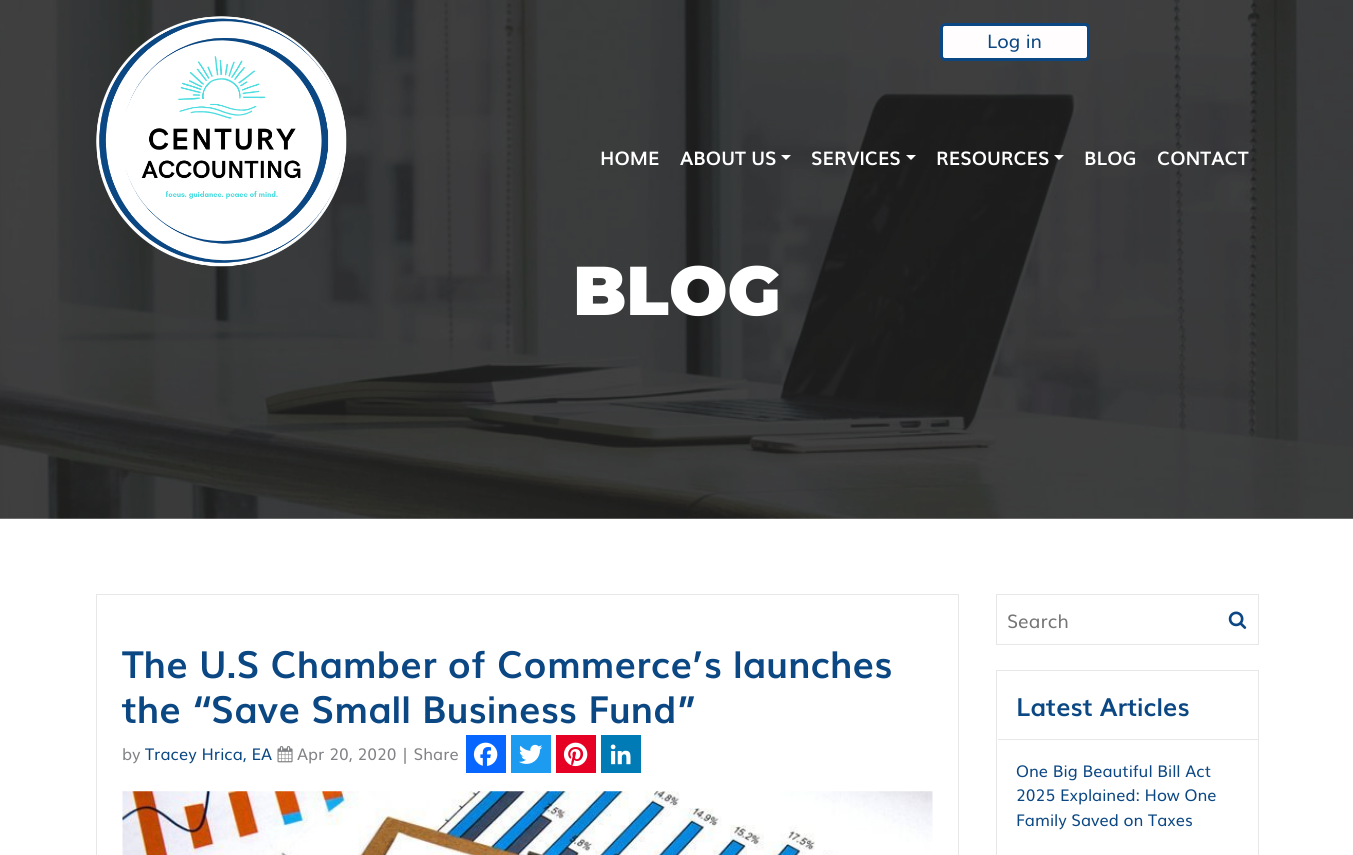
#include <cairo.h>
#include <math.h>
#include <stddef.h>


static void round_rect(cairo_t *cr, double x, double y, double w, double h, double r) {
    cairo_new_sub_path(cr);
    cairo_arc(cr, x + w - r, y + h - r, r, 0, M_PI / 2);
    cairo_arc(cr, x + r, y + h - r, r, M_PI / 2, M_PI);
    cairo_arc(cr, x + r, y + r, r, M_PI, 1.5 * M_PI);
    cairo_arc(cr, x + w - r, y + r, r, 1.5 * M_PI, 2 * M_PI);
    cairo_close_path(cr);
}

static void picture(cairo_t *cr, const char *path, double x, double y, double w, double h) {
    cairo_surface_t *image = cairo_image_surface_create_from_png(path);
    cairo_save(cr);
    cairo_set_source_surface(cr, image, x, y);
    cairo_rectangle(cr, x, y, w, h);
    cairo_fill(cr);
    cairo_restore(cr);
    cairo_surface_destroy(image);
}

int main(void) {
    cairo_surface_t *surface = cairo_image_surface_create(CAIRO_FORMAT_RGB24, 1353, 855);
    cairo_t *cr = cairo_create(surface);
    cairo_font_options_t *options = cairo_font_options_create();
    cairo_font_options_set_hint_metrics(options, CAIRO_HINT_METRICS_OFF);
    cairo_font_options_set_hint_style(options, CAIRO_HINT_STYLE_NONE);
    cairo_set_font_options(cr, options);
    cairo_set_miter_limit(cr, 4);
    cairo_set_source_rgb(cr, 1, 1, 1);
    cairo_paint(cr);
    picture(cr, "img2.png", 0, 0, 1353, 519);
    picture(cr, "img1.png", 96, 16, 251, 251);
    cairo_set_source_rgb(cr, 1, 0.992, 0.992);
    round_rect(cr, 941.5, 24.5, 147, 35, 3.5);
    cairo_fill_preserve(cr);
    cairo_set_source_rgb(cr, 0.043, 0.278, 0.514);
    cairo_set_line_width(cr, 3);
    cairo_stroke(cr);
    cairo_select_font_face(cr, "Muli", CAIRO_FONT_SLANT_NORMAL, CAIRO_FONT_WEIGHT_NORMAL);
    cairo_set_font_size(cr, 18.75);
    cairo_move_to(cr, 987, 48);
    cairo_show_text(cr, "Log in");
    cairo_select_font_face(cr, "Muli", CAIRO_FONT_SLANT_NORMAL, CAIRO_FONT_WEIGHT_BOLD);
    cairo_set_source_rgb(cr, 1, 1, 1);
    cairo_move_to(cr, 600, 165);
    cairo_show_text(cr, "HOME");
    cairo_move_to(cr, 680, 165);
    cairo_show_text(cr, "ABOUT US");
    cairo_new_path(cr);
    cairo_move_to(cr, 781, 155);
    cairo_line_to(cr, 791, 155);
    cairo_line_to(cr, 786, 160);
    cairo_close_path(cr);
    cairo_fill(cr);
    cairo_move_to(cr, 811, 165);
    cairo_show_text(cr, "SERVICES");
    cairo_new_path(cr);
    cairo_move_to(cr, 906, 155);
    cairo_line_to(cr, 916, 155);
    cairo_line_to(cr, 911, 160);
    cairo_close_path(cr);
    cairo_fill(cr);
    cairo_move_to(cr, 936, 165);
    cairo_show_text(cr, "RESOURCES");
    cairo_new_path(cr);
    cairo_move_to(cr, 1054, 155);
    cairo_line_to(cr, 1064, 155);
    cairo_line_to(cr, 1059, 160);
    cairo_close_path(cr);
    cairo_fill(cr);
    cairo_move_to(cr, 1084, 165);
    cairo_show_text(cr, "BLOG");
    cairo_move_to(cr, 1157, 165);
    cairo_show_text(cr, "CONTACT");
    cairo_select_font_face(cr, "Montserrat Black", CAIRO_FONT_SLANT_NORMAL, CAIRO_FONT_WEIGHT_NORMAL);
    cairo_set_font_size(cr, 69);
    cairo_move_to(cr, 573, 315);
    cairo_show_text(cr, "BLOG");
    cairo_rectangle(cr, 96.5, 594.5, 862, 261);
    cairo_set_source_rgb(cr, 0.906, 0.906, 0.906);
    cairo_set_line_width(cr, 1);
    cairo_stroke(cr);
    cairo_select_font_face(cr, "Muli", CAIRO_FONT_SLANT_NORMAL, CAIRO_FONT_WEIGHT_BOLD);
    cairo_set_font_size(cr, 37.5);
    cairo_set_source_rgb(cr, 0.043, 0.278, 0.514);
    cairo_move_to(cr, 122, 678);
    cairo_show_text(cr, "The U.S Chamber of Commerce’s launches");
    cairo_move_to(cr, 122, 723);
    cairo_show_text(cr, "the “Save Small Business Fund”");
    cairo_select_font_face(cr, "Muli", CAIRO_FONT_SLANT_NORMAL, CAIRO_FONT_WEIGHT_NORMAL);
    cairo_set_font_size(cr, 16.25);
    cairo_set_source_rgb(cr, 0.502, 0.51, 0.522);
    cairo_move_to(cr, 122, 760);
    cairo_show_text(cr, "by");
    cairo_set_source_rgb(cr, 0.043, 0.278, 0.514);
    cairo_move_to(cr, 145, 760);
    cairo_show_text(cr, "Tracey Hrica, EA");
    picture(cr, "img3.png", 277, 746, 16, 17);
    cairo_set_source_rgb(cr, 0.502, 0.51, 0.522);
    cairo_move_to(cr, 297, 760);
    cairo_show_text(cr, "Apr 20, 2020 | Share");
    cairo_set_source_rgb(cr, 0.031, 0.4, 1);
    cairo_rectangle(cr, 466, 735, 40, 38);
    cairo_fill(cr);
    picture(cr, "img4.png", 473, 742, 25, 24);
    cairo_set_source_rgb(cr, 0.114, 0.608, 0.941);
    cairo_rectangle(cr, 511, 735, 40, 38);
    cairo_fill(cr);
    picture(cr, "img5.png", 519, 744, 24, 20);
    cairo_set_source_rgb(cr, 0.902, 0, 0.137);
    cairo_rectangle(cr, 556, 735, 40, 38);
    cairo_fill(cr);
    picture(cr, "img6.png", 563, 742, 25, 25);
    cairo_set_source_rgb(cr, 0, 0.482, 0.71);
    cairo_rectangle(cr, 601, 735, 40, 38);
    cairo_fill(cr);
    picture(cr, "img7.png", 610, 744, 21, 21);
    picture(cr, "img8.png", 122, 791, 811, 64);
    cairo_rectangle(cr, 996.5, 594.5, 262, 50);
    cairo_set_source_rgb(cr, 0.906, 0.906, 0.906);
    cairo_stroke(cr);
    cairo_set_font_size(cr, 18.75);
    cairo_set_source_rgb(cr, 0.459, 0.459, 0.459);
    cairo_move_to(cr, 1007, 628);
    cairo_show_text(cr, "Search");
    picture(cr, "img9.png", 1228, 611, 19, 18);
    cairo_rectangle(cr, 996.5, 670.5, 262, 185);
    cairo_set_source_rgb(cr, 0.906, 0.906, 0.906);
    cairo_stroke(cr);
    cairo_rectangle(cr, 998, 739, 260, 1);
    cairo_fill(cr);
    cairo_select_font_face(cr, "Muli", CAIRO_FONT_SLANT_NORMAL, CAIRO_FONT_WEIGHT_BOLD);
    cairo_set_font_size(cr, 25);
    cairo_set_source_rgb(cr, 0.043, 0.278, 0.514);
    cairo_move_to(cr, 1016, 716);
    cairo_show_text(cr, "Latest Articles");
    cairo_select_font_face(cr, "Muli", CAIRO_FONT_SLANT_NORMAL, CAIRO_FONT_WEIGHT_NORMAL);
    cairo_set_font_size(cr, 16.25);
    cairo_move_to(cr, 1016, 777);
    cairo_show_text(cr, "One Big Beautiful Bill Act");
    cairo_move_to(cr, 1016, 801);
    cairo_show_text(cr, "2025 Explained: How One");
    cairo_move_to(cr, 1016, 826);
    cairo_show_text(cr, "Family Saved on Taxes");
    cairo_surface_write_to_png(surface, "page.png");
    cairo_font_options_destroy(options);
    cairo_destroy(cr);
    cairo_surface_destroy(surface);
    return 0;
}
